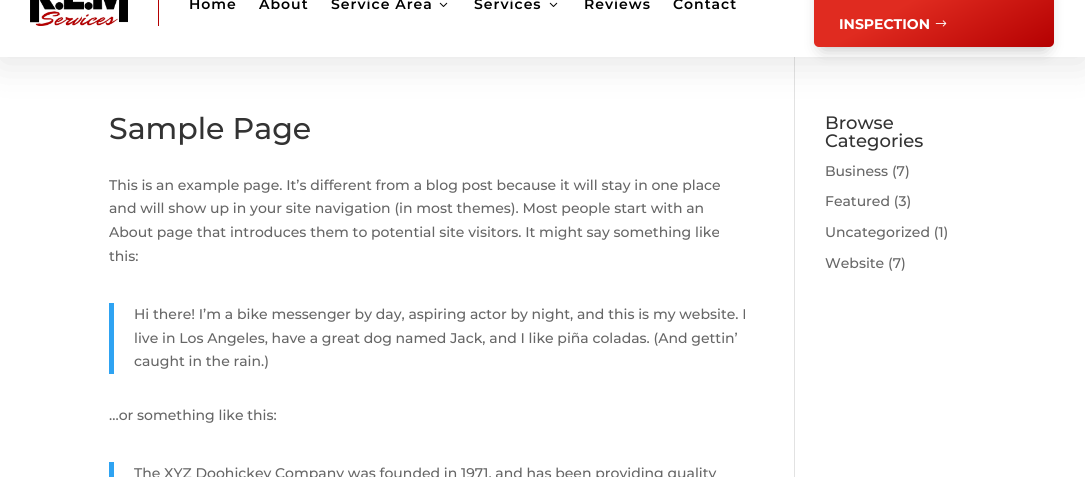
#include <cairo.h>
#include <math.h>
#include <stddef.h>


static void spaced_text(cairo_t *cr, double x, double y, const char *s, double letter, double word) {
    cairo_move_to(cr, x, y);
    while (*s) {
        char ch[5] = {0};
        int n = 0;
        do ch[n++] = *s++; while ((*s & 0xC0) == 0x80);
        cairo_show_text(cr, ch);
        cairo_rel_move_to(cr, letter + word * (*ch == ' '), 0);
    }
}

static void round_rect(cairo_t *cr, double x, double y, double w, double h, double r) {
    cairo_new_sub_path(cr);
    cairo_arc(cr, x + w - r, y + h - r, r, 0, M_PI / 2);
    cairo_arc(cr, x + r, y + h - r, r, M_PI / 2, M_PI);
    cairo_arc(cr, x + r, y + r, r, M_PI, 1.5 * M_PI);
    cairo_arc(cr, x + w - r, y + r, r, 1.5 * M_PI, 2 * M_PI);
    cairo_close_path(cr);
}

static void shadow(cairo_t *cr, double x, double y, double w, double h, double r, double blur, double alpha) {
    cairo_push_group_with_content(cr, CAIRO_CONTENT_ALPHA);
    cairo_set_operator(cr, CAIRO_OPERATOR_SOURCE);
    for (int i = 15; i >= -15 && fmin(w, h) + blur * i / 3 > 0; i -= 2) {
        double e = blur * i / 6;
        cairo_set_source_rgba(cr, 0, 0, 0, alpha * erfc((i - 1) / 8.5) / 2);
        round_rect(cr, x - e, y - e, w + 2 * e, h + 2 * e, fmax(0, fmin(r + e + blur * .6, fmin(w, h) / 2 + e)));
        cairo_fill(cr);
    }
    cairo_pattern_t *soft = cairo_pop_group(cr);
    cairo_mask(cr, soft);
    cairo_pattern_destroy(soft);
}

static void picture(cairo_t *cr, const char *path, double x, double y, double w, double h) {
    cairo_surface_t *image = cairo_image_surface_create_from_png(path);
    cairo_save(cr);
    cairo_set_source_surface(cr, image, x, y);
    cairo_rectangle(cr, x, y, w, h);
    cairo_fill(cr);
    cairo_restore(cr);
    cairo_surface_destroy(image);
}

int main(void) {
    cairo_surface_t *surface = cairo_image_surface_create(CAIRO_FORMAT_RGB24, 1085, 477);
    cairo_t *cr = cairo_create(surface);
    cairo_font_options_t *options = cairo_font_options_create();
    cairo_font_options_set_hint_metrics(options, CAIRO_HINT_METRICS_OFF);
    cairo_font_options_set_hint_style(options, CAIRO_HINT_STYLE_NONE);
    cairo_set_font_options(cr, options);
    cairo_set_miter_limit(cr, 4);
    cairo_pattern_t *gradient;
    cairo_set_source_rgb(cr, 1, 1, 1);
    cairo_paint(cr);
    cairo_set_source_rgb(cr, 0.886, 0.886, 0.886);
    cairo_rectangle(cr, 794, 56, 1, 421);
    cairo_fill(cr);
    cairo_set_source_rgb(cr, 0, 0, 0);
    shadow(cr, 0, -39, 1085, 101, 0, 20, 0.11);
    cairo_set_source_rgb(cr, 1, 1, 1);
    cairo_rectangle(cr, 0, 0, 1085, 57);
    cairo_fill(cr);
    cairo_set_source_rgb(cr, 0.706, 0, 0.004);
    cairo_rectangle(cr, 158, 0, 1, 26);
    cairo_fill(cr);
    picture(cr, "img1.png", 30, 0, 98, 26);
    cairo_select_font_face(cr, "Montserrat SemiBold", CAIRO_FONT_SLANT_NORMAL, CAIRO_FONT_WEIGHT_NORMAL);
    cairo_set_font_size(cr, 14);
    cairo_set_source_rgb(cr, 0, 0, 0);
    spaced_text(cr, 189, 9, "Home", 1, 0);
    spaced_text(cr, 259, 9, "About", 1, 0);
    spaced_text(cr, 331, 9, "Service Area", 1, 0);
    picture(cr, "img2.png", 439, 2, 9, 5);
    spaced_text(cr, 474, 9, "Services", 1, 0);
    picture(cr, "img2.png", 549, 2, 9, 5);
    spaced_text(cr, 584, 9, "Reviews", 1, 0);
    spaced_text(cr, 673, 9, "Contact", 1, 0);
    cairo_set_source_rgb(cr, 0, 0, 0);
    shadow(cr, 823, -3, 222, 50, 0, 9, 0.3);
    gradient = cairo_pattern_create_linear(891, -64, 977, 90);
    cairo_pattern_add_color_stop_rgba(gradient, 0.38, 0.878, 0.169, 0.125, 1);
    cairo_pattern_add_color_stop_rgba(gradient, 1, 0.706, 0, 0.004, 1);
    cairo_set_source(cr, gradient);
    cairo_pattern_destroy(gradient);
    round_rect(cr, 814, -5, 240, 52, 5);
    cairo_fill(cr);
    cairo_select_font_face(cr, "Montserrat", CAIRO_FONT_SLANT_NORMAL, CAIRO_FONT_WEIGHT_BOLD);
    cairo_set_source_rgb(cr, 1, 1, 1);
    cairo_move_to(cr, 839, 29);
    cairo_show_text(cr, "INSPECTION");
    picture(cr, "img3.png", 935, 20, 12, 7);
    cairo_select_font_face(cr, "Montserrat Medium", CAIRO_FONT_SLANT_NORMAL, CAIRO_FONT_WEIGHT_NORMAL);
    cairo_set_font_size(cr, 30);
    cairo_set_source_rgb(cr, 0.2, 0.2, 0.2);
    cairo_move_to(cr, 109, 139);
    cairo_show_text(cr, "Sample Page");
    cairo_set_font_size(cr, 14);
    cairo_set_source_rgb(cr, 0.4, 0.4, 0.4);
    cairo_move_to(cr, 109, 190);
    cairo_show_text(cr, "This is an example page. It’s different from a blog post because it will stay in one place");
    cairo_move_to(cr, 109, 213);
    cairo_show_text(cr, "and will show up in your site navigation (in most themes). Most people start with an");
    cairo_move_to(cr, 109, 237);
    cairo_show_text(cr, "About page that introduces them to potential site visitors. It might say something like");
    cairo_move_to(cr, 109, 261);
    cairo_show_text(cr, "this:");
    cairo_set_source_rgb(cr, 0.18, 0.639, 0.949);
    cairo_rectangle(cr, 109, 303, 5, 71);
    cairo_fill(cr);
    cairo_set_source_rgb(cr, 0.4, 0.4, 0.4);
    cairo_move_to(cr, 134, 319);
    cairo_show_text(cr, "Hi there! I’m a bike messenger by day, aspiring actor by night, and this is my website. I");
    cairo_move_to(cr, 134, 343);
    cairo_show_text(cr, "live in Los Angeles, have a great dog named Jack, and I like piña coladas. (And gettin’");
    cairo_move_to(cr, 134, 366);
    cairo_show_text(cr, "caught in the rain.)");
    cairo_move_to(cr, 109, 420);
    cairo_show_text(cr, "…or something like this:");
    cairo_set_source_rgb(cr, 0.18, 0.639, 0.949);
    cairo_rectangle(cr, 109, 462, 5, 15);
    cairo_fill(cr);
    cairo_set_source_rgb(cr, 0.4, 0.4, 0.4);
    cairo_move_to(cr, 134, 478);
    cairo_show_text(cr, "The XYZ Doohickey Company was founded in 1971, and has been providing quality");
    cairo_set_font_size(cr, 18);
    cairo_set_source_rgb(cr, 0.2, 0.2, 0.2);
    cairo_move_to(cr, 825, 129);
    cairo_show_text(cr, "Browse");
    cairo_move_to(cr, 825, 147);
    cairo_show_text(cr, "Categories");
    cairo_set_font_size(cr, 14);
    cairo_set_source_rgb(cr, 0.4, 0.4, 0.4);
    cairo_move_to(cr, 825, 176);
    cairo_show_text(cr, "Business (7)");
    cairo_move_to(cr, 825, 206);
    cairo_show_text(cr, "Featured (3)");
    cairo_move_to(cr, 825, 237);
    cairo_show_text(cr, "Uncategorized (1)");
    cairo_move_to(cr, 825, 268);
    cairo_show_text(cr, "Website (7)");
    cairo_surface_write_to_png(surface, "page.png");
    cairo_font_options_destroy(options);
    cairo_destroy(cr);
    cairo_surface_destroy(surface);
    return 0;
}
